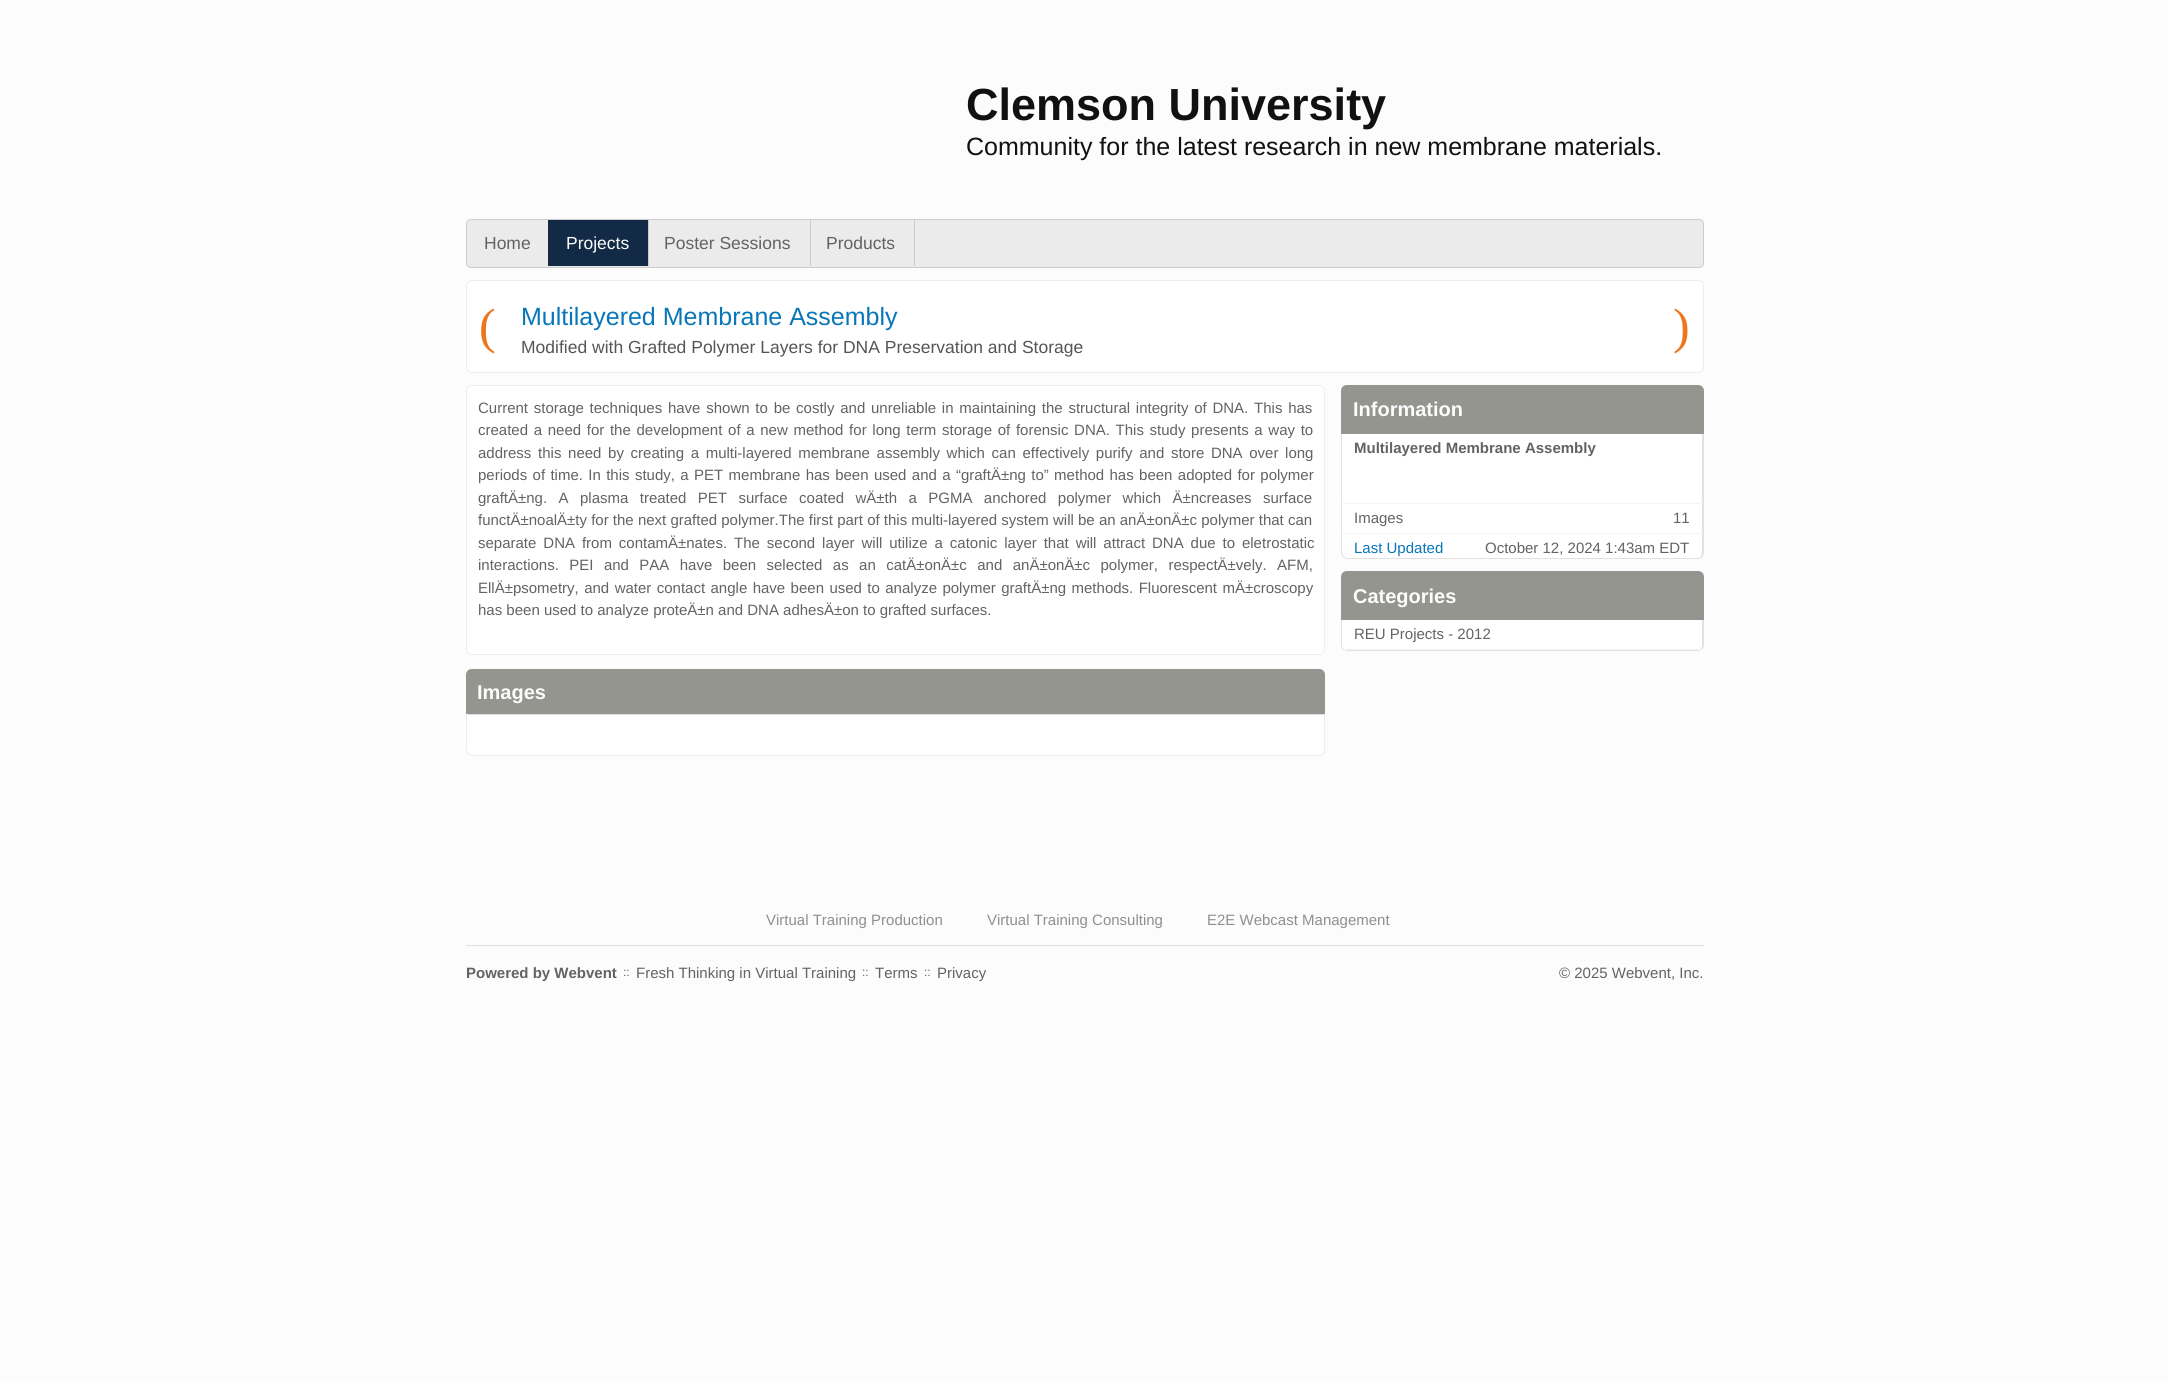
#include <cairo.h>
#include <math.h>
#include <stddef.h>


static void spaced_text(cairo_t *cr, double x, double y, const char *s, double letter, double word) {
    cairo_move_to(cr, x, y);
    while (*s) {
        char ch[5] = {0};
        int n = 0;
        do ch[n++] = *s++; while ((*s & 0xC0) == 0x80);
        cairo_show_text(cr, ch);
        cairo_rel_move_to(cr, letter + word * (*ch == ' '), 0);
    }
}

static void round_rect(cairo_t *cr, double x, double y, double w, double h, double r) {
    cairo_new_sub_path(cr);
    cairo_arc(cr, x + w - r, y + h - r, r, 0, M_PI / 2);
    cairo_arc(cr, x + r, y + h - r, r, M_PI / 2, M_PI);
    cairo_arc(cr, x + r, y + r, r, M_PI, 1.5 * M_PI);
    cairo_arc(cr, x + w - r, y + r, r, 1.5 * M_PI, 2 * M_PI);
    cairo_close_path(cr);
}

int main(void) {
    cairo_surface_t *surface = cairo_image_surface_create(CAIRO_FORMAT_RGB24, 2168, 1381);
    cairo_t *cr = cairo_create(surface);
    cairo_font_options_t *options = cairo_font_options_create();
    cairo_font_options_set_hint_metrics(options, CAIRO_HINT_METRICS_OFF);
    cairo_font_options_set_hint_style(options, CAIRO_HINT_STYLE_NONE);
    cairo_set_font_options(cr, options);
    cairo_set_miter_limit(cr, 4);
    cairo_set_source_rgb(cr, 0.988, 0.988, 0.988);
    cairo_paint(cr);
    cairo_select_font_face(cr, "Liberation Sans", CAIRO_FONT_SLANT_NORMAL, CAIRO_FONT_WEIGHT_BOLD);
    cairo_set_font_size(cr, 45);
    cairo_set_source_rgb(cr, 0.067, 0.067, 0.067);
    cairo_move_to(cr, 966, 120);
    cairo_show_text(cr, "Clemson University");
    cairo_select_font_face(cr, "Liberation Sans", CAIRO_FONT_SLANT_NORMAL, CAIRO_FONT_WEIGHT_NORMAL);
    cairo_set_font_size(cr, 25);
    cairo_move_to(cr, 966, 155);
    cairo_show_text(cr, "Community for the latest research in new membrane materials.");
    cairo_set_source_rgb(cr, 0.918, 0.918, 0.918);
    round_rect(cr, 466.5, 219.5, 1237, 48, 4.5);
    cairo_fill_preserve(cr);
    cairo_set_source_rgb(cr, 0.8, 0.8, 0.8);
    cairo_set_line_width(cr, 1);
    cairo_stroke(cr);
    cairo_set_font_size(cr, 17.5);
    cairo_set_source_rgb(cr, 0.388, 0.388, 0.388);
    cairo_move_to(cr, 484, 249);
    cairo_show_text(cr, "Home");
    cairo_set_source_rgb(cr, 0.078, 0.165, 0.275);
    cairo_rectangle(cr, 548, 220, 100, 46);
    cairo_fill(cr);
    cairo_set_source_rgb(cr, 0.988, 0.988, 0.988);
    cairo_move_to(cr, 566, 249);
    cairo_show_text(cr, "Projects");
    cairo_set_source_rgb(cr, 0.8, 0.8, 0.8);
    cairo_rectangle(cr, 648, 220, 1, 46);
    cairo_fill(cr);
    cairo_set_source_rgb(cr, 0.388, 0.388, 0.388);
    cairo_move_to(cr, 664, 249);
    cairo_show_text(cr, "Poster Sessions");
    cairo_set_source_rgb(cr, 0.8, 0.8, 0.8);
    cairo_rectangle(cr, 810, 220, 1, 46);
    cairo_fill(cr);
    cairo_set_source_rgb(cr, 0.388, 0.388, 0.388);
    cairo_move_to(cr, 826, 249);
    cairo_show_text(cr, "Products");
    cairo_set_source_rgb(cr, 0.8, 0.8, 0.8);
    cairo_rectangle(cr, 914, 220, 1, 46);
    cairo_fill(cr);
    cairo_set_source_rgb(cr, 1, 1, 1);
    round_rect(cr, 466.5, 280.5, 1237, 92, 5.5);
    cairo_fill_preserve(cr);
    cairo_set_source_rgb(cr, 0.929, 0.929, 0.929);
    cairo_stroke(cr);
    cairo_select_font_face(cr, "Liberation Serif", CAIRO_FONT_SLANT_NORMAL, CAIRO_FONT_WEIGHT_NORMAL);
    cairo_set_font_size(cr, 50);
    cairo_set_source_rgb(cr, 0.937, 0.459, 0.106);
    cairo_move_to(cr, 479, 343);
    cairo_show_text(cr, "(");
    cairo_select_font_face(cr, "Liberation Sans", CAIRO_FONT_SLANT_NORMAL, CAIRO_FONT_WEIGHT_NORMAL);
    cairo_set_font_size(cr, 25);
    cairo_set_source_rgb(cr, 0.035, 0.463, 0.722);
    cairo_move_to(cr, 521, 325);
    cairo_show_text(cr, "Multilayered Membrane Assembly");
    cairo_set_font_size(cr, 17.5);
    cairo_set_source_rgb(cr, 0.333, 0.333, 0.333);
    cairo_move_to(cr, 521, 353);
    cairo_show_text(cr, "Modified with Grafted Polymer Layers for DNA Preservation and Storage");
    cairo_select_font_face(cr, "Liberation Serif", CAIRO_FONT_SLANT_NORMAL, CAIRO_FONT_WEIGHT_NORMAL);
    cairo_set_font_size(cr, 50);
    cairo_set_source_rgb(cr, 0.937, 0.459, 0.106);
    cairo_move_to(cr, 1673, 343);
    cairo_show_text(cr, ")");
    cairo_set_source_rgb(cr, 1, 1, 1);
    round_rect(cr, 466.5, 385.5, 858, 269, 5.5);
    cairo_fill_preserve(cr);
    cairo_set_source_rgb(cr, 0.929, 0.929, 0.929);
    cairo_stroke(cr);
    cairo_select_font_face(cr, "Liberation Sans", CAIRO_FONT_SLANT_NORMAL, CAIRO_FONT_WEIGHT_NORMAL);
    cairo_set_font_size(cr, 15);
    cairo_set_source_rgb(cr, 0.388, 0.388, 0.388);
    spaced_text(cr, 478, 413, "Current storage techniques have shown to be costly and unreliable in maintaining the structural integrity of DNA. This has", 0, 1.6);
    spaced_text(cr, 478, 435, "created a need for the development of a new method for long term storage of forensic DNA. This study presents a way to", 0, 1.5);
    spaced_text(cr, 478, 458, "address this need by creating a multi-layered membrane assembly which can effectively purify and store DNA over long", 0, 2.5);
    spaced_text(cr, 478, 480, "periods of time. In this study, a PET membrane has been used and a “graftÄ±ng to” method has been adopted for polymer", 0, 1.2);
    spaced_text(cr, 478, 503, "graftÄ±ng. A plasma treated PET surface coated wÄ±th a PGMA anchored polymer which Ä±ncreases surface", 0, 7.25);
    cairo_move_to(cr, 478, 525);
    cairo_show_text(cr, "functÄ±noalÄ±ty for the next grafted polymer.The first part of this multi-layered system will be an anÄ±onÄ±c polymer that can");
    spaced_text(cr, 478, 548, "separate DNA from contamÄ±nates. The second layer will utilize a catonic layer that will attract DNA due to eletrostatic", 0, 2.75);
    spaced_text(cr, 478, 570, "interactions. PEI and PAA have been selected as an catÄ±onÄ±c and anÄ±onÄ±c polymer, respectÄ±vely. AFM,", 0, 6.25);
    spaced_text(cr, 478, 593, "EllÄ±psometry, and water contact angle have been used to analyze polymer graftÄ±ng methods. Fluorescent mÄ±croscopy", 0, 1.25);
    cairo_move_to(cr, 478, 615);
    cairo_show_text(cr, "has been used to analyze proteÄ±n and DNA adhesÄ±on to grafted surfaces.");
    cairo_set_source_rgb(cr, 1, 1, 1);
    round_rect(cr, 466.5, 669.5, 858, 86, 5.5);
    cairo_fill_preserve(cr);
    cairo_set_source_rgb(cr, 0.929, 0.929, 0.929);
    cairo_stroke(cr);
    cairo_set_source_rgb(cr, 0.58, 0.584, 0.561);
    cairo_new_path(cr);
    cairo_move_to(cr, 472, 669);
    cairo_line_to(cr, 1319, 669);
    cairo_curve_to(cr, 1322.5, 669, 1325, 671.5, 1325, 675);
    cairo_line_to(cr, 1325, 714);
    cairo_line_to(cr, 466, 714);
    cairo_line_to(cr, 466, 675);
    cairo_curve_to(cr, 466, 671.5, 468.5, 669, 472, 669);
    cairo_close_path(cr);
    cairo_fill(cr);
    cairo_select_font_face(cr, "Liberation Sans", CAIRO_FONT_SLANT_NORMAL, CAIRO_FONT_WEIGHT_BOLD);
    cairo_set_font_size(cr, 20);
    cairo_set_source_rgb(cr, 0.988, 0.988, 0.988);
    cairo_move_to(cr, 477, 699);
    cairo_show_text(cr, "Images");
    cairo_set_source_rgb(cr, 0.867, 0.867, 0.867);
    cairo_rectangle(cr, 468, 714, 856, 1);
    cairo_fill(cr);
    cairo_set_source_rgb(cr, 0.58, 0.584, 0.561);
    cairo_new_path(cr);
    cairo_move_to(cr, 1347, 385);
    cairo_line_to(cr, 1698, 385);
    cairo_curve_to(cr, 1701.5, 385, 1704, 387.5, 1704, 391);
    cairo_line_to(cr, 1704, 434);
    cairo_line_to(cr, 1341, 434);
    cairo_line_to(cr, 1341, 391);
    cairo_curve_to(cr, 1341, 387.5, 1343.5, 385, 1347, 385);
    cairo_close_path(cr);
    cairo_fill(cr);
    cairo_set_source_rgb(cr, 0.988, 0.988, 0.988);
    cairo_move_to(cr, 1353, 416);
    cairo_show_text(cr, "Information");
    cairo_set_source_rgb(cr, 1, 1, 1);
    cairo_new_path(cr);
    cairo_move_to(cr, 1341, 434);
    cairo_line_to(cr, 1704, 434);
    cairo_line_to(cr, 1704, 553);
    cairo_curve_to(cr, 1704, 556.5, 1701.5, 559, 1698, 559);
    cairo_line_to(cr, 1347, 559);
    cairo_curve_to(cr, 1343.5, 559, 1341, 556.5, 1341, 553);
    cairo_close_path(cr);
    cairo_fill(cr);
    cairo_set_source_rgb(cr, 0.882, 0.882, 0.882);
    cairo_set_fill_rule(cr, CAIRO_FILL_RULE_EVEN_ODD);
    cairo_new_path(cr);
    cairo_move_to(cr, 1341, 434);
    cairo_line_to(cr, 1704, 434);
    cairo_line_to(cr, 1704, 552);
    cairo_curve_to(cr, 1704, 556, 1701, 559, 1698, 559);
    cairo_line_to(cr, 1348, 559);
    cairo_curve_to(cr, 1344, 559, 1341, 556, 1341, 552);
    cairo_close_path(cr);
    cairo_move_to(cr, 1342, 434);
    cairo_line_to(cr, 1702, 434);
    cairo_line_to(cr, 1702, 552);
    cairo_curve_to(cr, 1702, 555, 1700, 558, 1698, 558);
    cairo_line_to(cr, 1348, 558);
    cairo_curve_to(cr, 1345, 558, 1342, 555, 1342, 552);
    cairo_close_path(cr);
    cairo_fill(cr);
    cairo_set_source_rgb(cr, 0.957, 0.957, 0.957);
    cairo_rectangle(cr, 1343, 503, 360, 1);
    cairo_fill(cr);
    cairo_set_font_size(cr, 15);
    cairo_set_source_rgb(cr, 0.388, 0.388, 0.388);
    cairo_move_to(cr, 1354, 453);
    cairo_show_text(cr, "Multilayered Membrane Assembly");
    cairo_set_source_rgb(cr, 0.957, 0.957, 0.957);
    cairo_rectangle(cr, 1343, 533, 360, 1);
    cairo_fill(cr);
    cairo_select_font_face(cr, "Liberation Sans", CAIRO_FONT_SLANT_NORMAL, CAIRO_FONT_WEIGHT_NORMAL);
    cairo_set_source_rgb(cr, 0.388, 0.388, 0.388);
    cairo_move_to(cr, 1354, 523);
    cairo_show_text(cr, "Images");
    cairo_move_to(cr, 1673, 523);
    cairo_show_text(cr, "11");
    cairo_set_source_rgb(cr, 0.035, 0.463, 0.722);
    cairo_move_to(cr, 1354, 553);
    cairo_show_text(cr, "Last Updated");
    cairo_set_source_rgb(cr, 0.388, 0.388, 0.388);
    cairo_move_to(cr, 1485, 553);
    cairo_show_text(cr, "October 12, 2024 1:43am EDT");
    cairo_set_source_rgb(cr, 0.58, 0.584, 0.561);
    cairo_new_path(cr);
    cairo_move_to(cr, 1347, 571);
    cairo_line_to(cr, 1698, 571);
    cairo_curve_to(cr, 1701.5, 571, 1704, 573.5, 1704, 577);
    cairo_line_to(cr, 1704, 620);
    cairo_line_to(cr, 1341, 620);
    cairo_line_to(cr, 1341, 577);
    cairo_curve_to(cr, 1341, 573.5, 1343.5, 571, 1347, 571);
    cairo_close_path(cr);
    cairo_fill(cr);
    cairo_select_font_face(cr, "Liberation Sans", CAIRO_FONT_SLANT_NORMAL, CAIRO_FONT_WEIGHT_BOLD);
    cairo_set_font_size(cr, 20);
    cairo_set_source_rgb(cr, 0.988, 0.988, 0.988);
    cairo_move_to(cr, 1353, 603);
    cairo_show_text(cr, "Categories");
    cairo_set_source_rgb(cr, 1, 1, 1);
    cairo_new_path(cr);
    cairo_move_to(cr, 1341, 620);
    cairo_line_to(cr, 1704, 620);
    cairo_line_to(cr, 1704, 645);
    cairo_curve_to(cr, 1704, 648.5, 1701.5, 651, 1698, 651);
    cairo_line_to(cr, 1347, 651);
    cairo_curve_to(cr, 1343.5, 651, 1341, 648.5, 1341, 645);
    cairo_close_path(cr);
    cairo_fill(cr);
    cairo_set_source_rgb(cr, 0.882, 0.882, 0.882);
    cairo_new_path(cr);
    cairo_move_to(cr, 1341, 620);
    cairo_line_to(cr, 1704, 620);
    cairo_line_to(cr, 1704, 645);
    cairo_curve_to(cr, 1704, 648, 1701, 651, 1698, 651);
    cairo_line_to(cr, 1348, 651);
    cairo_curve_to(cr, 1344, 651, 1341, 648, 1341, 645);
    cairo_close_path(cr);
    cairo_move_to(cr, 1342, 620);
    cairo_line_to(cr, 1702, 620);
    cairo_line_to(cr, 1702, 645);
    cairo_curve_to(cr, 1702, 648, 1700, 650, 1698, 650);
    cairo_line_to(cr, 1348, 650);
    cairo_curve_to(cr, 1345, 650, 1342, 648, 1342, 645);
    cairo_close_path(cr);
    cairo_fill(cr);
    cairo_set_source_rgb(cr, 0.957, 0.957, 0.957);
    cairo_rectangle(cr, 1343, 649, 360, 1);
    cairo_fill(cr);
    cairo_select_font_face(cr, "Liberation Sans", CAIRO_FONT_SLANT_NORMAL, CAIRO_FONT_WEIGHT_NORMAL);
    cairo_set_font_size(cr, 15);
    cairo_set_source_rgb(cr, 0.388, 0.388, 0.388);
    cairo_move_to(cr, 1354, 639);
    cairo_show_text(cr, "REU Projects - 2012");
    cairo_set_source_rgb(cr, 0.561, 0.561, 0.561);
    cairo_move_to(cr, 766, 925);
    cairo_show_text(cr, "Virtual Training Production");
    cairo_move_to(cr, 987, 925);
    cairo_show_text(cr, "Virtual Training Consulting");
    cairo_move_to(cr, 1207, 925);
    cairo_show_text(cr, "E2E Webcast Management");
    cairo_set_source_rgb(cr, 0.882, 0.882, 0.882);
    cairo_rectangle(cr, 466, 945, 1238, 1);
    cairo_fill(cr);
    cairo_select_font_face(cr, "Liberation Sans", CAIRO_FONT_SLANT_NORMAL, CAIRO_FONT_WEIGHT_BOLD);
    cairo_set_source_rgb(cr, 0.388, 0.388, 0.388);
    cairo_move_to(cr, 466, 978);
    cairo_show_text(cr, "Powered by Webvent");
    cairo_select_font_face(cr, "Liberation Sans", CAIRO_FONT_SLANT_NORMAL, CAIRO_FONT_WEIGHT_NORMAL);
    cairo_set_font_size(cr, 12);
    cairo_move_to(cr, 623, 976);
    cairo_show_text(cr, "::");
    cairo_set_font_size(cr, 15);
    cairo_move_to(cr, 636, 978);
    cairo_show_text(cr, "Fresh Thinking in Virtual Training");
    cairo_set_font_size(cr, 12);
    cairo_move_to(cr, 862, 976);
    cairo_show_text(cr, "::");
    cairo_set_font_size(cr, 15);
    cairo_move_to(cr, 875, 978);
    cairo_show_text(cr, "Terms");
    cairo_set_font_size(cr, 12);
    cairo_move_to(cr, 924, 976);
    cairo_show_text(cr, "::");
    cairo_set_font_size(cr, 15);
    cairo_move_to(cr, 937, 978);
    cairo_show_text(cr, "Privacy");
    cairo_move_to(cr, 1559, 978);
    cairo_show_text(cr, "© 2025 Webvent, Inc.");
    cairo_surface_write_to_png(surface, "page.png");
    cairo_font_options_destroy(options);
    cairo_destroy(cr);
    cairo_surface_destroy(surface);
    return 0;
}
